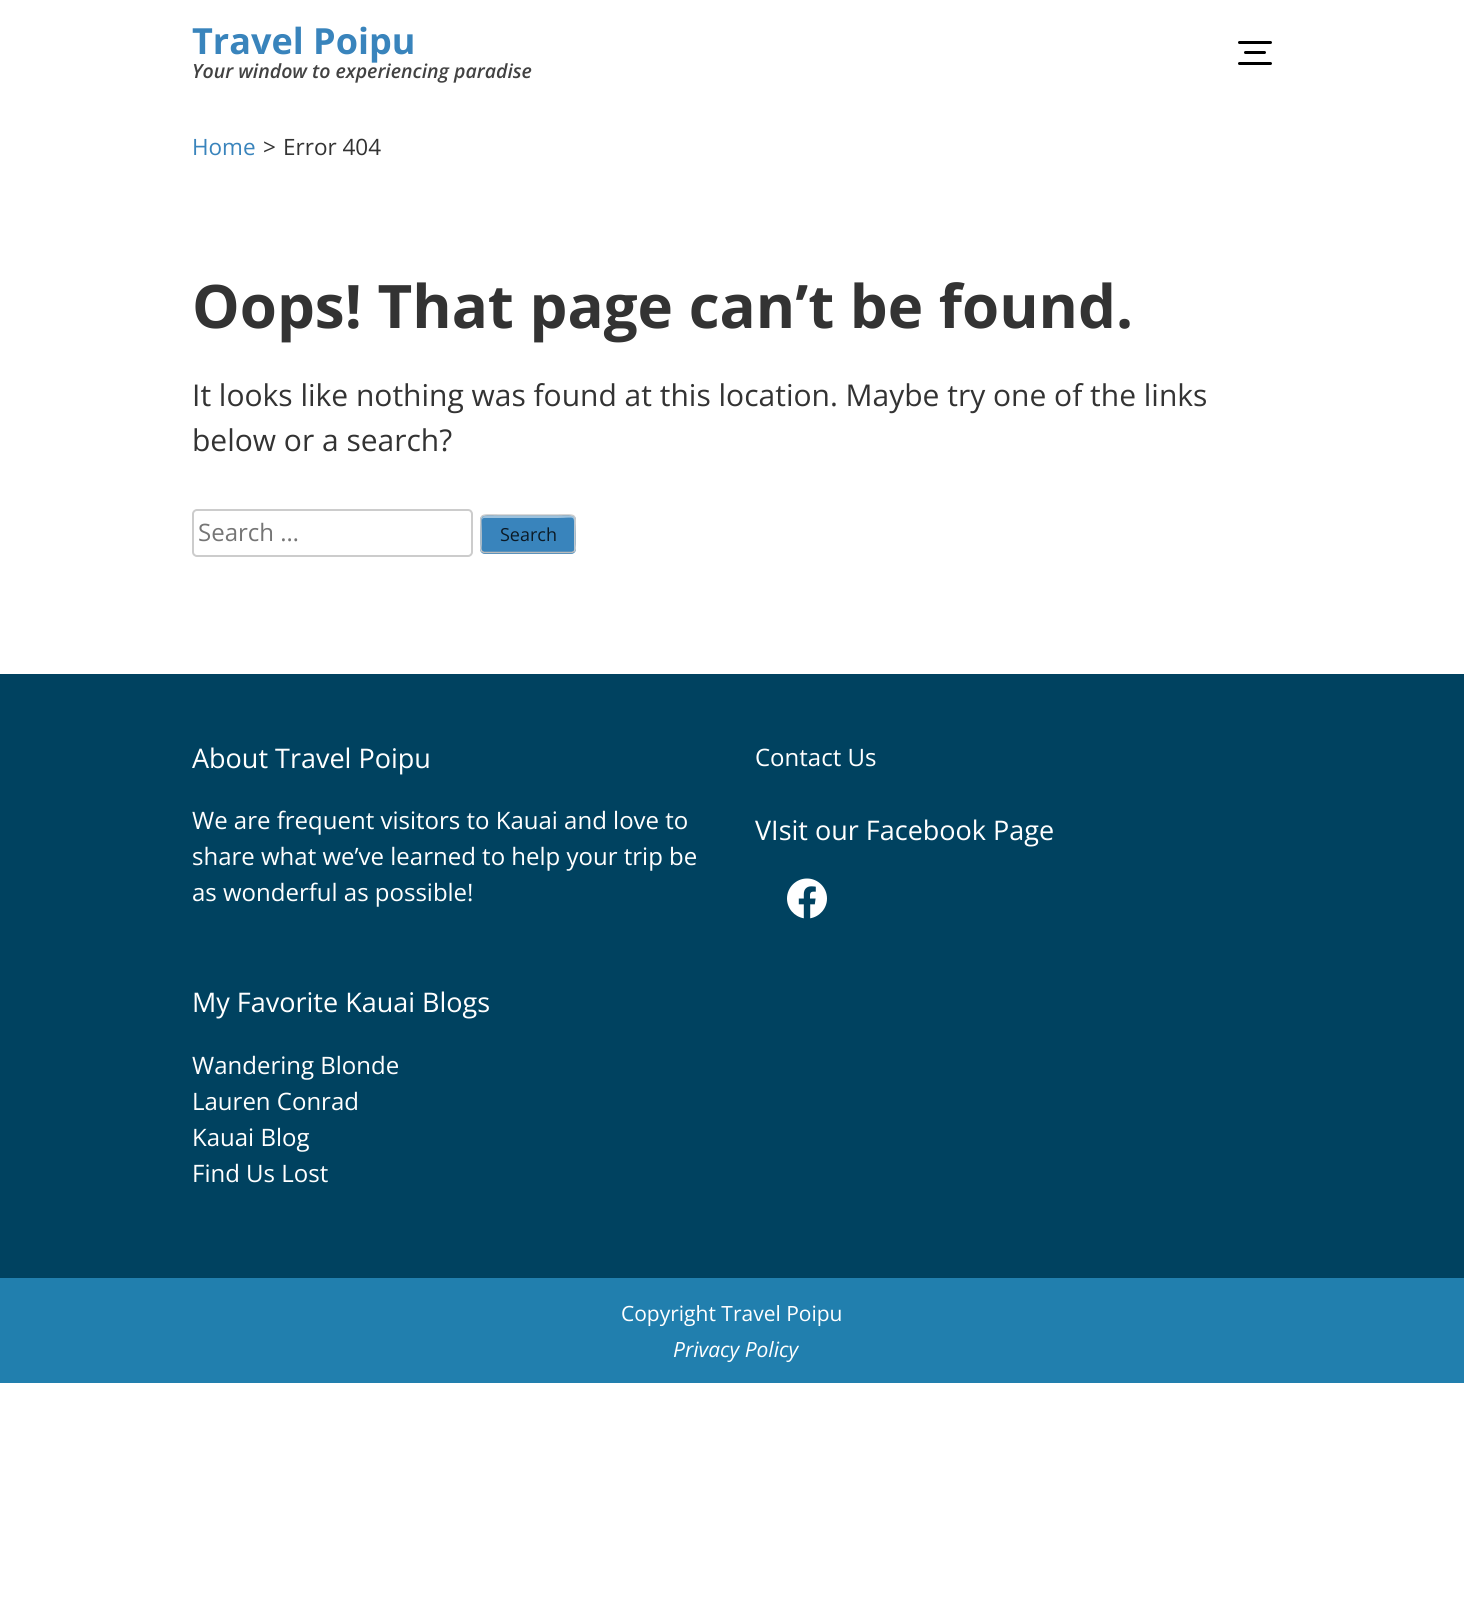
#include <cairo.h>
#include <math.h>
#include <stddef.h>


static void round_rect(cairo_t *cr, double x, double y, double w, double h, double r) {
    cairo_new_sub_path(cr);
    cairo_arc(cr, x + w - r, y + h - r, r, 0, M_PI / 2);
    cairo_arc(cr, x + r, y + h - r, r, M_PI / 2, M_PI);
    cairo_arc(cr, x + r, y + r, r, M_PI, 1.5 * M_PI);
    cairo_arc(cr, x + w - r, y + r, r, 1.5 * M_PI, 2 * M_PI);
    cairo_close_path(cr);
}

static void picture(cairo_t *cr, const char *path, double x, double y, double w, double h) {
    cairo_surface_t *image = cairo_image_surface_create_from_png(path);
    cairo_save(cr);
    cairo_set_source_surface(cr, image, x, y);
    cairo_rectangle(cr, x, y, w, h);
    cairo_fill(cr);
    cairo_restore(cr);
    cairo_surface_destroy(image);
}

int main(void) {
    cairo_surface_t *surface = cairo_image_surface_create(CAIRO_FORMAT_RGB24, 1464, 1604);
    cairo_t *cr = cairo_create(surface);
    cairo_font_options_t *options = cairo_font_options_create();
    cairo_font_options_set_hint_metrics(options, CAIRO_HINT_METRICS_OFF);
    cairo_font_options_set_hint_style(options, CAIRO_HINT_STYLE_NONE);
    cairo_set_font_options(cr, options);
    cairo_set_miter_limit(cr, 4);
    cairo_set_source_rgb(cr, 1, 1, 1);
    cairo_paint(cr);
    cairo_select_font_face(cr, "Open Sans", CAIRO_FONT_SLANT_NORMAL, CAIRO_FONT_WEIGHT_BOLD);
    cairo_set_font_size(cr, 36);
    cairo_set_source_rgb(cr, 0.224, 0.518, 0.737);
    cairo_move_to(cr, 192, 54);
    cairo_show_text(cr, "Travel Poipu");
    cairo_select_font_face(cr, "Open Sans SemiBold", CAIRO_FONT_SLANT_ITALIC, CAIRO_FONT_WEIGHT_NORMAL);
    cairo_set_font_size(cr, 19.5);
    cairo_set_source_rgb(cr, 0.259, 0.259, 0.259);
    cairo_move_to(cr, 192, 78);
    cairo_show_text(cr, "Your window to experiencing paradise");
    cairo_set_source_rgb(cr, 0, 0, 0);
    round_rect(cr, 1238, 41, 34, 3, 1.5);
    cairo_fill(cr);
    round_rect(cr, 1244, 51, 22, 3, 1.5);
    cairo_fill(cr);
    round_rect(cr, 1238, 62, 34, 3, 1.5);
    cairo_fill(cr);
    cairo_select_font_face(cr, "Open Sans", CAIRO_FONT_SLANT_NORMAL, CAIRO_FONT_WEIGHT_NORMAL);
    cairo_set_font_size(cr, 22.5);
    cairo_set_source_rgb(cr, 0.224, 0.518, 0.737);
    cairo_move_to(cr, 192, 155);
    cairo_show_text(cr, "Home");
    cairo_set_source_rgb(cr, 0.2, 0.2, 0.2);
    cairo_move_to(cr, 263, 155);
    cairo_show_text(cr, ">");
    cairo_move_to(cr, 283, 155);
    cairo_show_text(cr, "Error 404");
    cairo_select_font_face(cr, "Open Sans", CAIRO_FONT_SLANT_NORMAL, CAIRO_FONT_WEIGHT_BOLD);
    cairo_set_font_size(cr, 60);
    cairo_move_to(cr, 192, 328);
    cairo_show_text(cr, "Oops! That page can’t be found.");
    cairo_select_font_face(cr, "Open Sans", CAIRO_FONT_SLANT_NORMAL, CAIRO_FONT_WEIGHT_NORMAL);
    cairo_set_font_size(cr, 30);
    cairo_move_to(cr, 192, 406);
    cairo_show_text(cr, "It looks like nothing was found at this location. Maybe try one of the links");
    cairo_move_to(cr, 192, 451);
    cairo_show_text(cr, "below or a search?");
    round_rect(cr, 193, 510, 279, 46, 4);
    cairo_set_source_rgb(cr, 0.8, 0.8, 0.8);
    cairo_stroke(cr);
    cairo_set_font_size(cr, 24);
    cairo_set_source_rgb(cr, 0.459, 0.459, 0.459);
    cairo_move_to(cr, 198, 541);
    cairo_show_text(cr, "Search …");
    cairo_set_source_rgb(cr, 0.224, 0.518, 0.737);
    round_rect(cr, 480, 515, 96, 39, 5);
    cairo_fill(cr);
    cairo_set_source_rgb(cr, 0.612, 0.761, 0.871);
    cairo_new_path(cr);
    cairo_move_to(cr, 484, 518);
    cairo_line_to(cr, 557, 518);
    cairo_curve_to(cr, 576, 518, 574, 514, 574, 530);
    cairo_line_to(cr, 574, 551);
    cairo_curve_to(cr, 575, 551, 575, 550, 575, 549);
    cairo_line_to(cr, 575, 519);
    cairo_curve_to(cr, 575, 517, 574, 516, 572, 516);
    cairo_line_to(cr, 485, 516);
    cairo_curve_to(cr, 483, 516, 482, 517, 482, 519);
    cairo_line_to(cr, 482, 520);
    cairo_curve_to(cr, 482, 519, 483, 518, 484, 518);
    cairo_close_path(cr);
    cairo_fill(cr);
    cairo_new_path(cr);
    cairo_move_to(cr, 574, 551.5);
    cairo_line_to(cr, 572, 552.5);
    cairo_line_to(cr, 484, 552.5);
    cairo_line_to(cr, 482, 551.5);
    cairo_set_source_rgb(cr, 0.733, 0.733, 0.733);
    cairo_set_line_width(cr, 1.5);
    cairo_stroke(cr);
    cairo_new_path(cr);
    cairo_move_to(cr, 482, 551.5);
    cairo_curve_to(cr, 480, 550, 481, 546, 481, 544);
    cairo_line_to(cr, 481, 534);
    cairo_curve_to(cr, 481, 512.5, 477, 515, 499, 515);
    cairo_line_to(cr, 557, 515);
    cairo_curve_to(cr, 579, 515, 575, 512.5, 575, 534);
    cairo_line_to(cr, 575, 544);
    cairo_curve_to(cr, 575, 546, 576, 550, 574, 551.5);
    cairo_set_source_rgb(cr, 0.8, 0.8, 0.8);
    cairo_stroke(cr);
    cairo_set_font_size(cr, 18);
    cairo_set_source_rgb(cr, 0.043, 0.102, 0.149);
    cairo_move_to(cr, 500, 541);
    cairo_show_text(cr, "Search");
    cairo_set_source_rgb(cr, 0, 0.259, 0.376);
    cairo_rectangle(cr, 0, 674, 1464, 604);
    cairo_fill(cr);
    cairo_set_font_size(cr, 27);
    cairo_set_source_rgb(cr, 1, 1, 1);
    cairo_move_to(cr, 192, 768);
    cairo_show_text(cr, "About Travel Poipu");
    cairo_set_font_size(cr, 24);
    cairo_move_to(cr, 192, 829);
    cairo_show_text(cr, "We are frequent visitors to Kauai and love to");
    cairo_move_to(cr, 192, 865);
    cairo_show_text(cr, "share what we’ve learned to help your trip be");
    cairo_move_to(cr, 192, 901);
    cairo_show_text(cr, "as wonderful as possible!");
    cairo_move_to(cr, 755, 766);
    cairo_show_text(cr, "Contact Us");
    cairo_set_font_size(cr, 27);
    cairo_move_to(cr, 755, 840);
    cairo_show_text(cr, "VIsit our Facebook Page");
    picture(cr, "img1.png", 787, 878, 40, 41);
    cairo_move_to(cr, 192, 1012);
    cairo_show_text(cr, "My Favorite Kauai Blogs");
    cairo_set_font_size(cr, 24);
    cairo_move_to(cr, 192, 1074);
    cairo_show_text(cr, "Wandering Blonde");
    cairo_move_to(cr, 192, 1110);
    cairo_show_text(cr, "Lauren Conrad");
    cairo_move_to(cr, 192, 1146);
    cairo_show_text(cr, "Kauai Blog");
    cairo_move_to(cr, 192, 1182);
    cairo_show_text(cr, "Find Us Lost");
    cairo_set_source_rgb(cr, 0.129, 0.498, 0.682);
    cairo_rectangle(cr, 0, 1278, 1464, 105);
    cairo_fill(cr);
    cairo_set_font_size(cr, 21);
    cairo_set_source_rgb(cr, 1, 1, 1);
    cairo_move_to(cr, 621, 1321);
    cairo_show_text(cr, "Copyright Travel Poipu");
    cairo_select_font_face(cr, "Open Sans", CAIRO_FONT_SLANT_ITALIC, CAIRO_FONT_WEIGHT_NORMAL);
    cairo_move_to(cr, 673, 1357);
    cairo_show_text(cr, "Privacy Policy");
    cairo_surface_write_to_png(surface, "page.png");
    cairo_font_options_destroy(options);
    cairo_destroy(cr);
    cairo_surface_destroy(surface);
    return 0;
}
